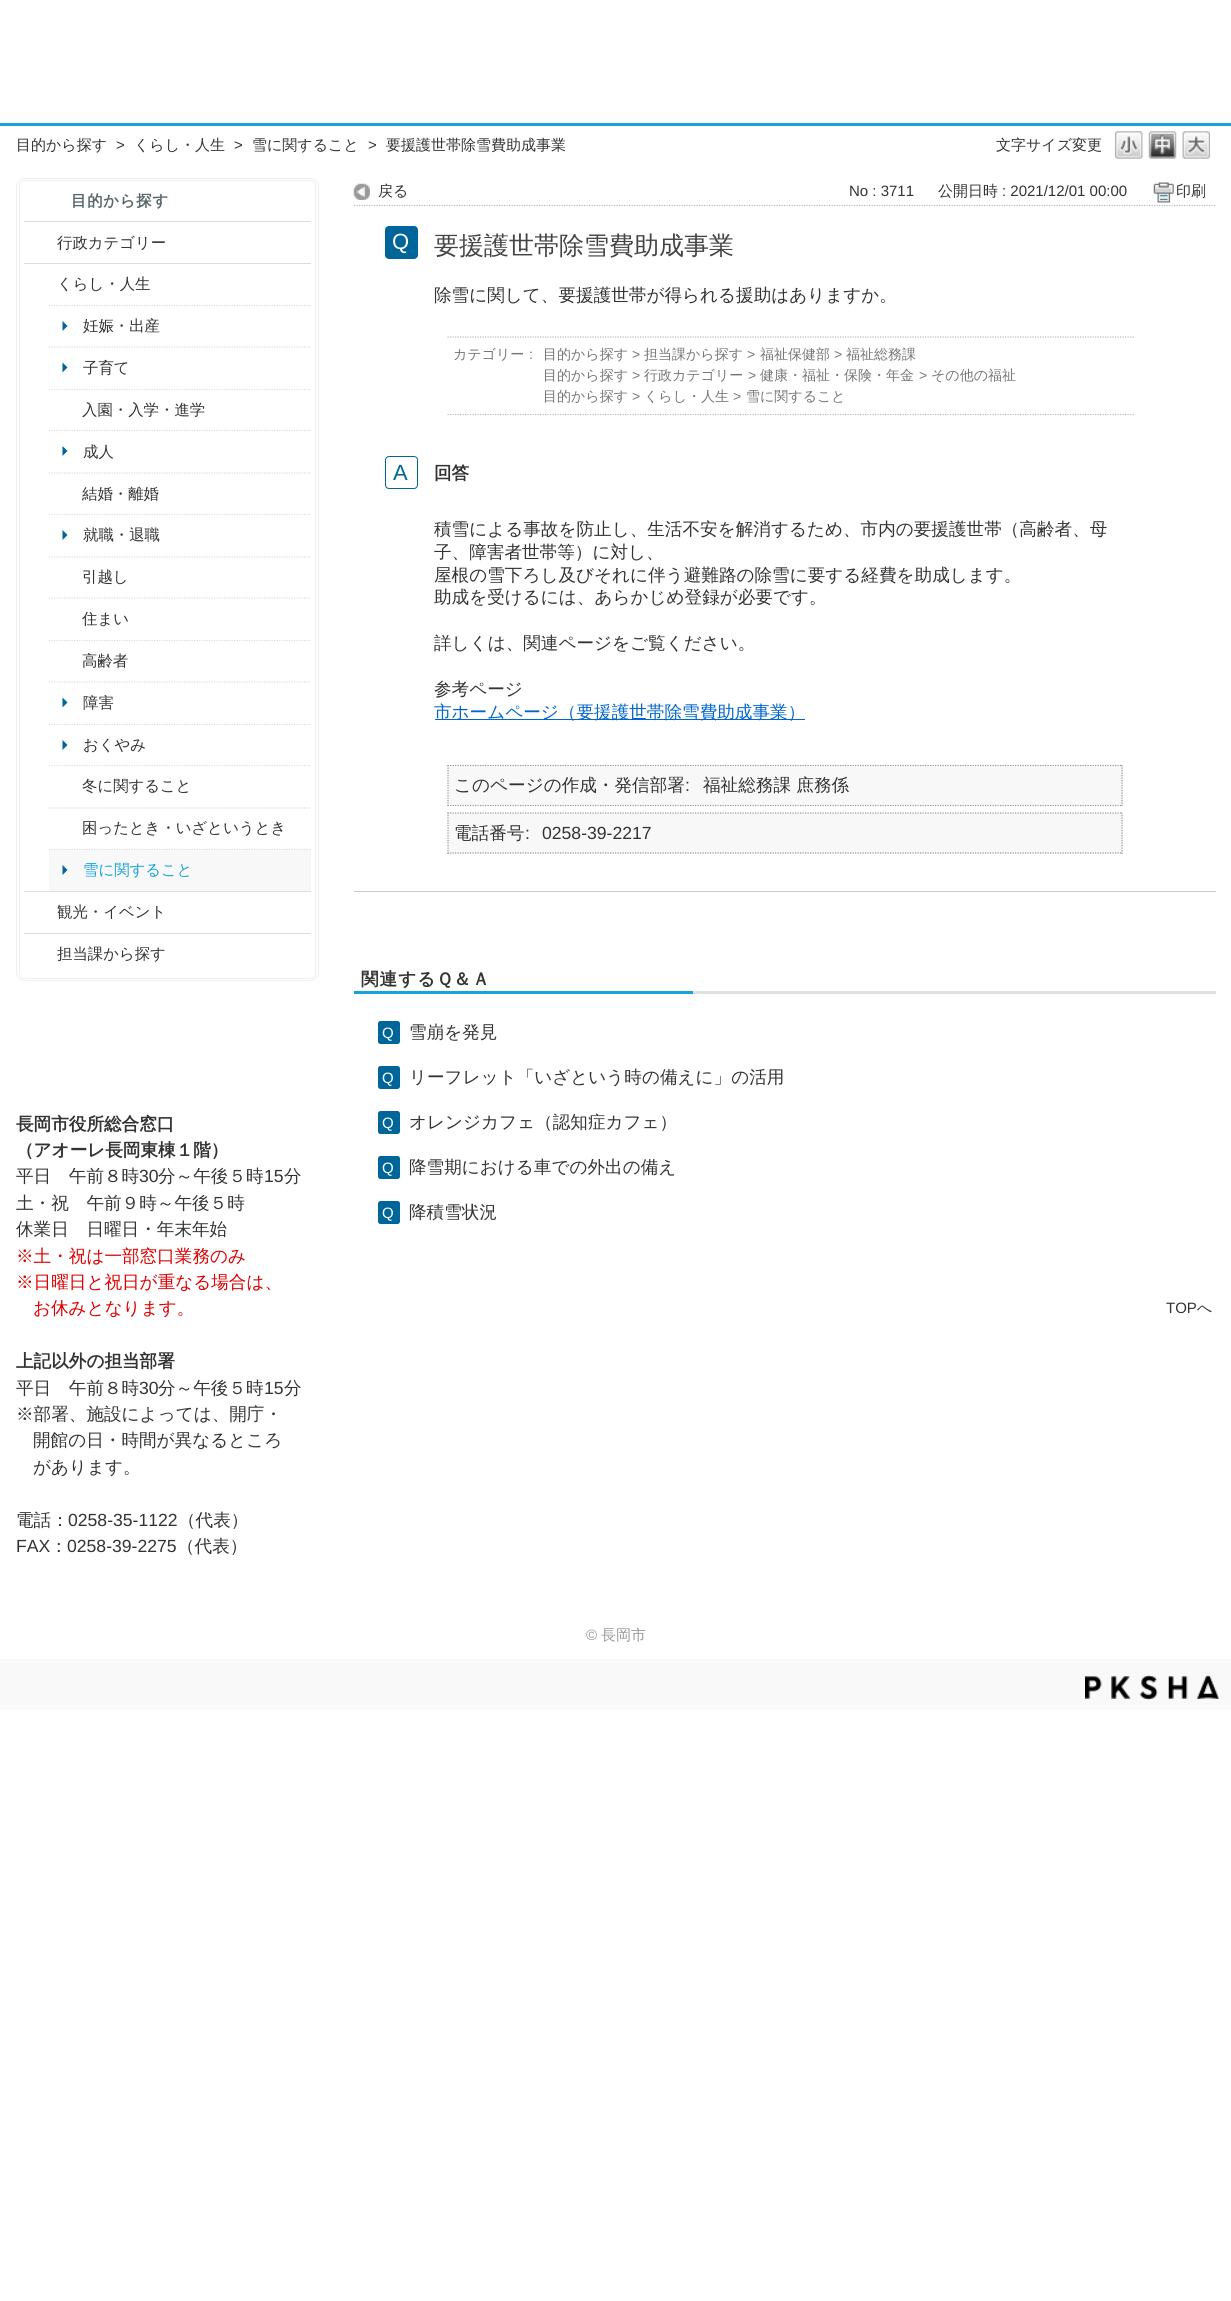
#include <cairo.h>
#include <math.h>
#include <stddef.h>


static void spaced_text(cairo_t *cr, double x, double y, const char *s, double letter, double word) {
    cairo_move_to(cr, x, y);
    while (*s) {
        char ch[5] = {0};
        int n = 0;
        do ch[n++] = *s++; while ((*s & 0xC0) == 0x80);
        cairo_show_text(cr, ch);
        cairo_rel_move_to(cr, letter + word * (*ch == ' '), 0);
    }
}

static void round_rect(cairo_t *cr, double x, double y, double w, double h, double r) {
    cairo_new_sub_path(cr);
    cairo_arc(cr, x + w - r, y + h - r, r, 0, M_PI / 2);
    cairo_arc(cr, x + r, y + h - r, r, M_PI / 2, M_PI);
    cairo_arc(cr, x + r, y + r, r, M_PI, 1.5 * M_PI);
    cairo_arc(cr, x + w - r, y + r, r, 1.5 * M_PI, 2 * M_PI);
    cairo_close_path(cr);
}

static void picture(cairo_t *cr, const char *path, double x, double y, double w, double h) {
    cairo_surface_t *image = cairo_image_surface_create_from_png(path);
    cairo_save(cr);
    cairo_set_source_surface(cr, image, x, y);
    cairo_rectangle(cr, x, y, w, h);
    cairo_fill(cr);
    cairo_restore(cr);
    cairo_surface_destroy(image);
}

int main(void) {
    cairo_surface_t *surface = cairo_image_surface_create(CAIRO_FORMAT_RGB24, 1231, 2301);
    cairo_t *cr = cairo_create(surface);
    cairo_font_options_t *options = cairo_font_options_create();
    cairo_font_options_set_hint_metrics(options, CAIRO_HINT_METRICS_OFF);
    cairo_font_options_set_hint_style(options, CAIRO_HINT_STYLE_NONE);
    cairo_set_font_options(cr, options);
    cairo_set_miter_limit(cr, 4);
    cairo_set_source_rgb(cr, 1, 1, 1);
    cairo_paint(cr);
    cairo_set_source_rgb(cr, 0.094, 0.639, 0.863);
    cairo_rectangle(cr, 0, 123, 1231, 3);
    cairo_fill(cr);
    cairo_select_font_face(cr, "WenQuanYi Zen Hei Medium", CAIRO_FONT_SLANT_NORMAL, CAIRO_FONT_WEIGHT_NORMAL);
    cairo_set_font_size(cr, 15);
    cairo_set_source_rgb(cr, 0.2, 0.2, 0.2);
    cairo_move_to(cr, 16, 150);
    cairo_show_text(cr, "目的から探す");
    cairo_select_font_face(cr, "Liberation Sans", CAIRO_FONT_SLANT_NORMAL, CAIRO_FONT_WEIGHT_NORMAL);
    cairo_move_to(cr, 116, 150);
    cairo_show_text(cr, ">");
    cairo_select_font_face(cr, "WenQuanYi Zen Hei Medium", CAIRO_FONT_SLANT_NORMAL, CAIRO_FONT_WEIGHT_NORMAL);
    cairo_move_to(cr, 134, 150);
    cairo_show_text(cr, "くらし・人生");
    cairo_select_font_face(cr, "Liberation Sans", CAIRO_FONT_SLANT_NORMAL, CAIRO_FONT_WEIGHT_NORMAL);
    cairo_move_to(cr, 234, 150);
    cairo_show_text(cr, ">");
    cairo_select_font_face(cr, "WenQuanYi Zen Hei Medium", CAIRO_FONT_SLANT_NORMAL, CAIRO_FONT_WEIGHT_NORMAL);
    cairo_move_to(cr, 252, 150);
    cairo_show_text(cr, "雪に関すること");
    cairo_select_font_face(cr, "Liberation Sans", CAIRO_FONT_SLANT_NORMAL, CAIRO_FONT_WEIGHT_NORMAL);
    cairo_move_to(cr, 368, 150);
    cairo_show_text(cr, ">");
    cairo_select_font_face(cr, "WenQuanYi Zen Hei Medium", CAIRO_FONT_SLANT_NORMAL, CAIRO_FONT_WEIGHT_NORMAL);
    cairo_move_to(cr, 386, 150);
    cairo_show_text(cr, "要援護世帯除雪費助成事業");
    cairo_move_to(cr, 996, 150);
    cairo_show_text(cr, "文字サイズ変更");
    picture(cr, "img1.png", 1115, 131, 28, 28);
    picture(cr, "img2.png", 1148, 131, 29, 28);
    picture(cr, "img3.png", 1182, 131, 28, 28);
    round_rect(cr, 16.5, 178.5, 302, 802, 8.5);
    cairo_set_source_rgb(cr, 0.937, 0.937, 0.937);
    cairo_set_line_width(cr, 1);
    cairo_stroke(cr);
    round_rect(cr, 19.5, 180.5, 296, 798, 5.5);
    cairo_stroke(cr);
    cairo_select_font_face(cr, "WenQuanYi Zen Hei", CAIRO_FONT_SLANT_NORMAL, CAIRO_FONT_WEIGHT_BOLD);
    cairo_set_font_size(cr, 15.4);
    cairo_set_source_rgb(cr, 0.345, 0.404, 0.42);
    spaced_text(cr, 71, 206, "目的から探す", 0.75, 0);
    cairo_set_source_rgb(cr, 0.867, 0.867, 0.867);
    cairo_rectangle(cr, 24, 221, 287, 1);
    cairo_fill(cr);
    cairo_select_font_face(cr, "WenQuanYi Zen Hei Medium", CAIRO_FONT_SLANT_NORMAL, CAIRO_FONT_WEIGHT_NORMAL);
    cairo_set_source_rgb(cr, 0.2, 0.2, 0.2);
    cairo_move_to(cr, 57, 248);
    cairo_show_text(cr, "行政カテゴリー");
    cairo_set_source_rgb(cr, 0.867, 0.867, 0.867);
    cairo_rectangle(cr, 24, 263, 287, 1);
    cairo_fill(cr);
    cairo_set_source_rgb(cr, 0.2, 0.2, 0.2);
    cairo_move_to(cr, 57, 289);
    cairo_show_text(cr, "くらし・人生");
    cairo_new_path(cr);
    cairo_move_to(cr, 49, 305.5);
    cairo_line_to(cr, 311, 305.5);
    cairo_set_source_rgb(cr, 0.867, 0.867, 0.867);
    cairo_set_line_width(cr, 1.2);
    cairo_set_dash(cr, (double[]){1.25, 1.25}, 2, 0);
    cairo_stroke(cr);
    cairo_set_source_rgb(cr, 0, 0.4, 0.6);
    cairo_new_path(cr);
    cairo_move_to(cr, 62.5, 331);
    cairo_line_to(cr, 62.5, 321);
    cairo_line_to(cr, 67.5, 326);
    cairo_close_path(cr);
    cairo_fill(cr);
    cairo_set_source_rgb(cr, 0.2, 0.2, 0.2);
    cairo_move_to(cr, 83, 331);
    cairo_show_text(cr, "妊娠・出産");
    cairo_new_path(cr);
    cairo_move_to(cr, 49, 347);
    cairo_line_to(cr, 311, 347);
    cairo_set_source_rgb(cr, 0.867, 0.867, 0.867);
    cairo_stroke(cr);
    cairo_set_source_rgb(cr, 0, 0.4, 0.6);
    cairo_new_path(cr);
    cairo_move_to(cr, 62.5, 372.5);
    cairo_line_to(cr, 62.5, 362.5);
    cairo_line_to(cr, 67.5, 367.5);
    cairo_close_path(cr);
    cairo_fill(cr);
    cairo_set_source_rgb(cr, 0.2, 0.2, 0.2);
    cairo_move_to(cr, 83, 373);
    cairo_show_text(cr, "子育て");
    cairo_new_path(cr);
    cairo_move_to(cr, 49, 389.5);
    cairo_line_to(cr, 311, 389.5);
    cairo_set_source_rgb(cr, 0.867, 0.867, 0.867);
    cairo_stroke(cr);
    cairo_set_source_rgb(cr, 0.2, 0.2, 0.2);
    cairo_move_to(cr, 82, 415);
    cairo_show_text(cr, "入園・入学・進学");
    cairo_new_path(cr);
    cairo_move_to(cr, 49, 430.5);
    cairo_line_to(cr, 311, 430.5);
    cairo_set_source_rgb(cr, 0.867, 0.867, 0.867);
    cairo_stroke(cr);
    cairo_set_source_rgb(cr, 0, 0.4, 0.6);
    cairo_new_path(cr);
    cairo_move_to(cr, 62.5, 456);
    cairo_line_to(cr, 62.5, 446);
    cairo_line_to(cr, 67.5, 451);
    cairo_close_path(cr);
    cairo_fill(cr);
    cairo_set_source_rgb(cr, 0.2, 0.2, 0.2);
    cairo_move_to(cr, 83, 457);
    cairo_show_text(cr, "成人");
    cairo_new_path(cr);
    cairo_move_to(cr, 49, 473);
    cairo_line_to(cr, 311, 473);
    cairo_set_source_rgb(cr, 0.867, 0.867, 0.867);
    cairo_stroke(cr);
    cairo_set_source_rgb(cr, 0.2, 0.2, 0.2);
    cairo_move_to(cr, 82, 499);
    cairo_show_text(cr, "結婚・離婚");
    cairo_new_path(cr);
    cairo_move_to(cr, 49, 514.5);
    cairo_line_to(cr, 311, 514.5);
    cairo_set_source_rgb(cr, 0.867, 0.867, 0.867);
    cairo_stroke(cr);
    cairo_set_source_rgb(cr, 0, 0.4, 0.6);
    cairo_new_path(cr);
    cairo_move_to(cr, 62.5, 540);
    cairo_line_to(cr, 62.5, 530);
    cairo_line_to(cr, 67.5, 535);
    cairo_close_path(cr);
    cairo_fill(cr);
    cairo_set_source_rgb(cr, 0.2, 0.2, 0.2);
    cairo_move_to(cr, 83, 540);
    cairo_show_text(cr, "就職・退職");
    cairo_new_path(cr);
    cairo_move_to(cr, 49, 557);
    cairo_line_to(cr, 311, 557);
    cairo_set_source_rgb(cr, 0.867, 0.867, 0.867);
    cairo_stroke(cr);
    cairo_set_source_rgb(cr, 0.2, 0.2, 0.2);
    cairo_move_to(cr, 82, 582);
    cairo_show_text(cr, "引越し");
    cairo_new_path(cr);
    cairo_move_to(cr, 49, 598);
    cairo_line_to(cr, 311, 598);
    cairo_set_source_rgb(cr, 0.867, 0.867, 0.867);
    cairo_stroke(cr);
    cairo_set_source_rgb(cr, 0.2, 0.2, 0.2);
    cairo_move_to(cr, 82, 624);
    cairo_show_text(cr, "住まい");
    cairo_new_path(cr);
    cairo_move_to(cr, 49, 640.5);
    cairo_line_to(cr, 311, 640.5);
    cairo_set_source_rgb(cr, 0.867, 0.867, 0.867);
    cairo_stroke(cr);
    cairo_set_source_rgb(cr, 0.2, 0.2, 0.2);
    cairo_move_to(cr, 82, 666);
    cairo_show_text(cr, "高齢者");
    cairo_new_path(cr);
    cairo_move_to(cr, 49, 682);
    cairo_line_to(cr, 311, 682);
    cairo_set_source_rgb(cr, 0.867, 0.867, 0.867);
    cairo_stroke(cr);
    cairo_set_source_rgb(cr, 0, 0.4, 0.6);
    cairo_new_path(cr);
    cairo_move_to(cr, 62.5, 707.5);
    cairo_line_to(cr, 62.5, 697.5);
    cairo_line_to(cr, 67.5, 702.5);
    cairo_close_path(cr);
    cairo_fill(cr);
    cairo_set_source_rgb(cr, 0.2, 0.2, 0.2);
    cairo_move_to(cr, 83, 708);
    cairo_show_text(cr, "障害");
    cairo_new_path(cr);
    cairo_move_to(cr, 49, 724.5);
    cairo_line_to(cr, 311, 724.5);
    cairo_set_source_rgb(cr, 0.867, 0.867, 0.867);
    cairo_stroke(cr);
    cairo_set_source_rgb(cr, 0, 0.4, 0.6);
    cairo_new_path(cr);
    cairo_move_to(cr, 62.5, 750);
    cairo_line_to(cr, 62.5, 740);
    cairo_line_to(cr, 67.5, 745);
    cairo_close_path(cr);
    cairo_fill(cr);
    cairo_set_source_rgb(cr, 0.2, 0.2, 0.2);
    cairo_move_to(cr, 83, 750);
    cairo_show_text(cr, "おくやみ");
    cairo_new_path(cr);
    cairo_move_to(cr, 49, 765.5);
    cairo_line_to(cr, 311, 765.5);
    cairo_set_source_rgb(cr, 0.867, 0.867, 0.867);
    cairo_stroke(cr);
    cairo_set_source_rgb(cr, 0.2, 0.2, 0.2);
    cairo_move_to(cr, 82, 791);
    cairo_show_text(cr, "冬に関すること");
    cairo_new_path(cr);
    cairo_move_to(cr, 49, 808);
    cairo_line_to(cr, 311, 808);
    cairo_set_source_rgb(cr, 0.867, 0.867, 0.867);
    cairo_stroke(cr);
    cairo_set_source_rgb(cr, 0.2, 0.2, 0.2);
    cairo_move_to(cr, 82, 833);
    cairo_show_text(cr, "困ったとき・いざというとき");
    cairo_new_path(cr);
    cairo_move_to(cr, 49, 849.5);
    cairo_line_to(cr, 311, 849.5);
    cairo_set_source_rgb(cr, 0.867, 0.867, 0.867);
    cairo_stroke(cr);
    cairo_set_source_rgb(cr, 0.969, 0.969, 0.969);
    cairo_rectangle(cr, 49, 850, 262, 41);
    cairo_fill(cr);
    cairo_set_source_rgb(cr, 0, 0.4, 0.6);
    cairo_new_path(cr);
    cairo_move_to(cr, 62.5, 875);
    cairo_line_to(cr, 62.5, 865);
    cairo_line_to(cr, 67.5, 870);
    cairo_close_path(cr);
    cairo_fill(cr);
    cairo_set_source_rgb(cr, 0.094, 0.639, 0.863);
    cairo_move_to(cr, 83, 875);
    cairo_show_text(cr, "雪に関すること");
    cairo_set_source_rgb(cr, 0.867, 0.867, 0.867);
    cairo_rectangle(cr, 24, 891, 287, 1);
    cairo_fill(cr);
    cairo_set_source_rgb(cr, 0.2, 0.2, 0.2);
    cairo_move_to(cr, 57, 917);
    cairo_show_text(cr, "観光・イベント");
    cairo_set_source_rgb(cr, 0.867, 0.867, 0.867);
    cairo_rectangle(cr, 24, 933, 287, 1);
    cairo_fill(cr);
    cairo_set_source_rgb(cr, 0.2, 0.2, 0.2);
    cairo_move_to(cr, 57, 959);
    cairo_show_text(cr, "担当課から探す");
    cairo_select_font_face(cr, "WenQuanYi Zen Hei", CAIRO_FONT_SLANT_NORMAL, CAIRO_FONT_WEIGHT_BOLD);
    cairo_set_font_size(cr, 17.6);
    cairo_move_to(cr, 16, 1130);
    cairo_show_text(cr, "長岡市役所総合窓口");
    cairo_move_to(cr, 16, 1156);
    cairo_show_text(cr, "（アオーレ長岡東棟１階）");
    cairo_select_font_face(cr, "WenQuanYi Zen Hei Medium", CAIRO_FONT_SLANT_NORMAL, CAIRO_FONT_WEIGHT_NORMAL);
    cairo_move_to(cr, 16, 1182);
    cairo_show_text(cr, "平日　午前８時");
    cairo_select_font_face(cr, "Liberation Sans", CAIRO_FONT_SLANT_NORMAL, CAIRO_FONT_WEIGHT_NORMAL);
    cairo_move_to(cr, 139, 1182);
    cairo_show_text(cr, "30");
    cairo_select_font_face(cr, "WenQuanYi Zen Hei Medium", CAIRO_FONT_SLANT_NORMAL, CAIRO_FONT_WEIGHT_NORMAL);
    cairo_move_to(cr, 158, 1182);
    cairo_show_text(cr, "分～午後５時");
    cairo_select_font_face(cr, "Liberation Sans", CAIRO_FONT_SLANT_NORMAL, CAIRO_FONT_WEIGHT_NORMAL);
    cairo_move_to(cr, 264, 1182);
    cairo_show_text(cr, "15");
    cairo_select_font_face(cr, "WenQuanYi Zen Hei Medium", CAIRO_FONT_SLANT_NORMAL, CAIRO_FONT_WEIGHT_NORMAL);
    cairo_move_to(cr, 284, 1182);
    cairo_show_text(cr, "分");
    cairo_move_to(cr, 16, 1209);
    cairo_show_text(cr, "土・祝　午前９時～午後５時");
    cairo_move_to(cr, 16, 1235);
    cairo_show_text(cr, "休業日　日曜日・年末年始");
    cairo_set_source_rgb(cr, 0.867, 0, 0);
    cairo_move_to(cr, 16, 1262);
    cairo_show_text(cr, "※土・祝は一部窓口業務のみ");
    cairo_move_to(cr, 16, 1288);
    cairo_show_text(cr, "※日曜日と祝日が重なる場合は、");
    cairo_move_to(cr, 33, 1314);
    cairo_show_text(cr, "お休みとなります。");
    cairo_select_font_face(cr, "WenQuanYi Zen Hei", CAIRO_FONT_SLANT_NORMAL, CAIRO_FONT_WEIGHT_BOLD);
    cairo_set_source_rgb(cr, 0.2, 0.2, 0.2);
    cairo_move_to(cr, 16, 1367);
    cairo_show_text(cr, "上記以外の担当部署");
    cairo_select_font_face(cr, "WenQuanYi Zen Hei Medium", CAIRO_FONT_SLANT_NORMAL, CAIRO_FONT_WEIGHT_NORMAL);
    cairo_move_to(cr, 16, 1394);
    cairo_show_text(cr, "平日　午前８時");
    cairo_select_font_face(cr, "Liberation Sans", CAIRO_FONT_SLANT_NORMAL, CAIRO_FONT_WEIGHT_NORMAL);
    cairo_move_to(cr, 139, 1394);
    cairo_show_text(cr, "30");
    cairo_select_font_face(cr, "WenQuanYi Zen Hei Medium", CAIRO_FONT_SLANT_NORMAL, CAIRO_FONT_WEIGHT_NORMAL);
    cairo_move_to(cr, 158, 1394);
    cairo_show_text(cr, "分～午後５時");
    cairo_select_font_face(cr, "Liberation Sans", CAIRO_FONT_SLANT_NORMAL, CAIRO_FONT_WEIGHT_NORMAL);
    cairo_move_to(cr, 264, 1394);
    cairo_show_text(cr, "15");
    cairo_select_font_face(cr, "WenQuanYi Zen Hei Medium", CAIRO_FONT_SLANT_NORMAL, CAIRO_FONT_WEIGHT_NORMAL);
    cairo_move_to(cr, 284, 1394);
    cairo_show_text(cr, "分");
    cairo_move_to(cr, 16, 1420);
    cairo_show_text(cr, "※部署、施設によっては、開庁・");
    cairo_move_to(cr, 33, 1446);
    cairo_show_text(cr, "開館の日・時間が異なるところ");
    cairo_move_to(cr, 33, 1473);
    cairo_show_text(cr, "があります。");
    cairo_move_to(cr, 16, 1526);
    cairo_show_text(cr, "電話：");
    cairo_select_font_face(cr, "Liberation Sans", CAIRO_FONT_SLANT_NORMAL, CAIRO_FONT_WEIGHT_NORMAL);
    cairo_move_to(cr, 68, 1526);
    cairo_show_text(cr, "0258-35-1122");
    cairo_select_font_face(cr, "WenQuanYi Zen Hei Medium", CAIRO_FONT_SLANT_NORMAL, CAIRO_FONT_WEIGHT_NORMAL);
    cairo_move_to(cr, 178, 1526);
    cairo_show_text(cr, "（代表）");
    cairo_select_font_face(cr, "Liberation Sans", CAIRO_FONT_SLANT_NORMAL, CAIRO_FONT_WEIGHT_NORMAL);
    cairo_move_to(cr, 16, 1552);
    cairo_show_text(cr, "FAX");
    cairo_select_font_face(cr, "WenQuanYi Zen Hei Medium", CAIRO_FONT_SLANT_NORMAL, CAIRO_FONT_WEIGHT_NORMAL);
    cairo_move_to(cr, 50, 1552);
    cairo_show_text(cr, "：");
    cairo_select_font_face(cr, "Liberation Sans", CAIRO_FONT_SLANT_NORMAL, CAIRO_FONT_WEIGHT_NORMAL);
    cairo_move_to(cr, 67, 1552);
    cairo_show_text(cr, "0258-39-2275");
    cairo_select_font_face(cr, "WenQuanYi Zen Hei Medium", CAIRO_FONT_SLANT_NORMAL, CAIRO_FONT_WEIGHT_NORMAL);
    cairo_move_to(cr, 177, 1552);
    cairo_show_text(cr, "（代表）");
    cairo_new_path(cr);
    cairo_move_to(cr, 354, 205.5);
    cairo_line_to(cr, 1216, 205.5);
    cairo_set_source_rgb(cr, 0.733, 0.733, 0.733);
    cairo_stroke(cr);
    picture(cr, "img4.png", 353, 183, 17, 17);
    cairo_set_font_size(cr, 15);
    cairo_set_source_rgb(cr, 0.2, 0.2, 0.2);
    cairo_move_to(cr, 378, 196);
    cairo_show_text(cr, "戻る");
    cairo_select_font_face(cr, "Liberation Sans", CAIRO_FONT_SLANT_NORMAL, CAIRO_FONT_WEIGHT_NORMAL);
    cairo_move_to(cr, 849, 196);
    cairo_show_text(cr, "No : 3711");
    cairo_select_font_face(cr, "WenQuanYi Zen Hei Medium", CAIRO_FONT_SLANT_NORMAL, CAIRO_FONT_WEIGHT_NORMAL);
    cairo_move_to(cr, 938, 196);
    cairo_show_text(cr, "公開日時");
    cairo_select_font_face(cr, "Liberation Sans", CAIRO_FONT_SLANT_NORMAL, CAIRO_FONT_WEIGHT_NORMAL);
    cairo_move_to(cr, 1002, 196);
    cairo_show_text(cr, ": 2021/12/01 00:00");
    picture(cr, "img5.png", 1153, 182, 21, 21);
    cairo_select_font_face(cr, "WenQuanYi Zen Hei Medium", CAIRO_FONT_SLANT_NORMAL, CAIRO_FONT_WEIGHT_NORMAL);
    cairo_move_to(cr, 1176, 196);
    cairo_show_text(cr, "印刷");
    cairo_set_source_rgb(cr, 0, 0.4, 0.6);
    round_rect(cr, 385, 226, 33, 33, 4);
    cairo_fill(cr);
    cairo_select_font_face(cr, "Liberation Sans", CAIRO_FONT_SLANT_NORMAL, CAIRO_FONT_WEIGHT_NORMAL);
    cairo_set_font_size(cr, 22);
    cairo_set_source_rgb(cr, 1, 1, 1);
    cairo_move_to(cr, 392, 249);
    cairo_show_text(cr, "Q");
    cairo_select_font_face(cr, "WenQuanYi Zen Hei Medium", CAIRO_FONT_SLANT_NORMAL, CAIRO_FONT_WEIGHT_NORMAL);
    cairo_set_font_size(cr, 25);
    cairo_set_source_rgb(cr, 0.267, 0.267, 0.267);
    cairo_move_to(cr, 434, 254);
    cairo_show_text(cr, "要援護世帯除雪費助成事業");
    cairo_set_font_size(cr, 17.6);
    cairo_set_source_rgb(cr, 0.2, 0.2, 0.2);
    cairo_move_to(cr, 434, 301);
    cairo_show_text(cr, "除雪に関して、要援護世帯が得られる援助はありますか。");
    cairo_new_path(cr);
    cairo_move_to(cr, 447.5, 337);
    cairo_line_to(cr, 1135, 337);
    cairo_set_source_rgb(cr, 0.733, 0.733, 0.733);
    cairo_stroke(cr);
    cairo_new_path(cr);
    cairo_move_to(cr, 447.5, 414.5);
    cairo_line_to(cr, 1135, 414.5);
    cairo_stroke(cr);
    cairo_set_font_size(cr, 14);
    cairo_set_source_rgb(cr, 0.463, 0.463, 0.463);
    cairo_move_to(cr, 453, 359);
    cairo_show_text(cr, "カテゴリー");
    cairo_select_font_face(cr, "Liberation Sans", CAIRO_FONT_SLANT_NORMAL, CAIRO_FONT_WEIGHT_NORMAL);
    cairo_move_to(cr, 529, 359);
    cairo_show_text(cr, ":");
    cairo_select_font_face(cr, "WenQuanYi Zen Hei Medium", CAIRO_FONT_SLANT_NORMAL, CAIRO_FONT_WEIGHT_NORMAL);
    cairo_move_to(cr, 543, 359);
    cairo_show_text(cr, "目的から探す");
    cairo_select_font_face(cr, "Liberation Sans", CAIRO_FONT_SLANT_NORMAL, CAIRO_FONT_WEIGHT_NORMAL);
    cairo_move_to(cr, 632, 359);
    cairo_show_text(cr, ">");
    cairo_select_font_face(cr, "WenQuanYi Zen Hei Medium", CAIRO_FONT_SLANT_NORMAL, CAIRO_FONT_WEIGHT_NORMAL);
    cairo_move_to(cr, 644, 359);
    cairo_show_text(cr, "担当課から探す");
    cairo_select_font_face(cr, "Liberation Sans", CAIRO_FONT_SLANT_NORMAL, CAIRO_FONT_WEIGHT_NORMAL);
    cairo_move_to(cr, 747, 359);
    cairo_show_text(cr, ">");
    cairo_select_font_face(cr, "WenQuanYi Zen Hei Medium", CAIRO_FONT_SLANT_NORMAL, CAIRO_FONT_WEIGHT_NORMAL);
    cairo_move_to(cr, 760, 359);
    cairo_show_text(cr, "福祉保健部");
    cairo_select_font_face(cr, "Liberation Sans", CAIRO_FONT_SLANT_NORMAL, CAIRO_FONT_WEIGHT_NORMAL);
    cairo_move_to(cr, 834, 359);
    cairo_show_text(cr, ">");
    cairo_select_font_face(cr, "WenQuanYi Zen Hei Medium", CAIRO_FONT_SLANT_NORMAL, CAIRO_FONT_WEIGHT_NORMAL);
    cairo_move_to(cr, 846, 359);
    cairo_show_text(cr, "福祉総務課");
    cairo_move_to(cr, 543, 380);
    cairo_show_text(cr, "目的から探す");
    cairo_select_font_face(cr, "Liberation Sans", CAIRO_FONT_SLANT_NORMAL, CAIRO_FONT_WEIGHT_NORMAL);
    cairo_move_to(cr, 632, 380);
    cairo_show_text(cr, ">");
    cairo_select_font_face(cr, "WenQuanYi Zen Hei Medium", CAIRO_FONT_SLANT_NORMAL, CAIRO_FONT_WEIGHT_NORMAL);
    cairo_move_to(cr, 644, 380);
    cairo_show_text(cr, "行政カテゴリー");
    cairo_select_font_face(cr, "Liberation Sans", CAIRO_FONT_SLANT_NORMAL, CAIRO_FONT_WEIGHT_NORMAL);
    cairo_move_to(cr, 748, 380);
    cairo_show_text(cr, ">");
    cairo_select_font_face(cr, "WenQuanYi Zen Hei Medium", CAIRO_FONT_SLANT_NORMAL, CAIRO_FONT_WEIGHT_NORMAL);
    cairo_move_to(cr, 760, 380);
    cairo_show_text(cr, "健康・福祉・保険・年金");
    cairo_select_font_face(cr, "Liberation Sans", CAIRO_FONT_SLANT_NORMAL, CAIRO_FONT_WEIGHT_NORMAL);
    cairo_move_to(cr, 919, 380);
    cairo_show_text(cr, ">");
    cairo_select_font_face(cr, "WenQuanYi Zen Hei Medium", CAIRO_FONT_SLANT_NORMAL, CAIRO_FONT_WEIGHT_NORMAL);
    cairo_move_to(cr, 931, 380);
    cairo_show_text(cr, "その他の福祉");
    cairo_move_to(cr, 543, 401);
    cairo_show_text(cr, "目的から探す");
    cairo_select_font_face(cr, "Liberation Sans", CAIRO_FONT_SLANT_NORMAL, CAIRO_FONT_WEIGHT_NORMAL);
    cairo_move_to(cr, 632, 401);
    cairo_show_text(cr, ">");
    cairo_select_font_face(cr, "WenQuanYi Zen Hei Medium", CAIRO_FONT_SLANT_NORMAL, CAIRO_FONT_WEIGHT_NORMAL);
    cairo_move_to(cr, 644, 401);
    cairo_show_text(cr, "くらし・人生");
    cairo_select_font_face(cr, "Liberation Sans", CAIRO_FONT_SLANT_NORMAL, CAIRO_FONT_WEIGHT_NORMAL);
    cairo_move_to(cr, 733, 401);
    cairo_show_text(cr, ">");
    cairo_select_font_face(cr, "WenQuanYi Zen Hei Medium", CAIRO_FONT_SLANT_NORMAL, CAIRO_FONT_WEIGHT_NORMAL);
    cairo_move_to(cr, 746, 401);
    cairo_show_text(cr, "雪に関すること");
    round_rect(cr, 385.5, 456.5, 32, 32, 3.5);
    cairo_set_source_rgb(cr, 0, 0.4, 0.6);
    cairo_set_line_width(cr, 1);
    cairo_set_dash(cr, NULL, 0, 0);
    cairo_stroke(cr);
    cairo_select_font_face(cr, "Liberation Sans", CAIRO_FONT_SLANT_NORMAL, CAIRO_FONT_WEIGHT_NORMAL);
    cairo_set_font_size(cr, 22);
    cairo_move_to(cr, 393, 480);
    cairo_show_text(cr, "A");
    cairo_select_font_face(cr, "WenQuanYi Zen Hei", CAIRO_FONT_SLANT_NORMAL, CAIRO_FONT_WEIGHT_BOLD);
    cairo_set_font_size(cr, 17.6);
    cairo_set_source_rgb(cr, 0.2, 0.2, 0.2);
    cairo_move_to(cr, 434, 479);
    cairo_show_text(cr, "回答");
    cairo_set_source_rgb(cr, 0.8, 0.8, 0.8);
    cairo_rectangle(cr, 354, 891, 862, 1);
    cairo_fill(cr);
    cairo_select_font_face(cr, "WenQuanYi Zen Hei Medium", CAIRO_FONT_SLANT_NORMAL, CAIRO_FONT_WEIGHT_NORMAL);
    cairo_set_source_rgb(cr, 0.2, 0.2, 0.2);
    cairo_move_to(cr, 434, 535);
    cairo_show_text(cr, "積雪による事故を防止し、生活不安を解消するため、市内の要援護世帯（高齢者、母");
    cairo_move_to(cr, 434, 558);
    cairo_show_text(cr, "子、障害者世帯等）に対し、");
    cairo_move_to(cr, 434, 581);
    cairo_show_text(cr, "屋根の雪下ろし及びそれに伴う避難路の除雪に要する経費を助成します。");
    cairo_move_to(cr, 434, 603);
    cairo_show_text(cr, "助成を受けるには、あらかじめ登録が必要です。");
    cairo_move_to(cr, 434, 649);
    cairo_show_text(cr, "詳しくは、関連ページをご覧ください。");
    cairo_move_to(cr, 434, 695);
    cairo_show_text(cr, "参考ページ");
    cairo_set_source_rgb(cr, 0, 0.4, 0.8);
    cairo_rectangle(cr, 435, 719, 370, 1);
    cairo_fill(cr);
    cairo_move_to(cr, 434, 718);
    cairo_show_text(cr, "市ホームページ（要援護世帯除雪費助成事業）");
    cairo_set_source_rgb(cr, 0.969, 0.969, 0.969);
    cairo_rectangle(cr, 448, 765, 675, 41);
    cairo_fill(cr);
    cairo_new_path(cr);
    cairo_move_to(cr, 447.5, 765.5);
    cairo_line_to(cr, 1122.5, 765.5);
    cairo_set_source_rgb(cr, 0.6, 0.6, 0.6);
    cairo_set_line_width(cr, 1.2);
    cairo_set_dash(cr, (double[]){1.25, 1.25}, 2, 0);
    cairo_stroke(cr);
    cairo_new_path(cr);
    cairo_move_to(cr, 1122, 765);
    cairo_line_to(cr, 1122, 806);
    cairo_stroke(cr);
    cairo_new_path(cr);
    cairo_move_to(cr, 447.5, 805.5);
    cairo_line_to(cr, 1122.5, 805.5);
    cairo_stroke(cr);
    cairo_new_path(cr);
    cairo_move_to(cr, 448, 765);
    cairo_line_to(cr, 448, 806);
    cairo_stroke(cr);
    cairo_set_source_rgb(cr, 0.2, 0.2, 0.2);
    cairo_move_to(cr, 454, 791);
    cairo_show_text(cr, "このページの作成・発信部署");
    cairo_select_font_face(cr, "Liberation Sans", CAIRO_FONT_SLANT_NORMAL, CAIRO_FONT_WEIGHT_NORMAL);
    cairo_move_to(cr, 685, 791);
    cairo_show_text(cr, ":");
    cairo_select_font_face(cr, "WenQuanYi Zen Hei Medium", CAIRO_FONT_SLANT_NORMAL, CAIRO_FONT_WEIGHT_NORMAL);
    cairo_move_to(cr, 703, 791);
    cairo_show_text(cr, "福祉総務課 庶務係");
    cairo_set_source_rgb(cr, 0.969, 0.969, 0.969);
    cairo_rectangle(cr, 448, 813, 675, 41);
    cairo_fill(cr);
    cairo_new_path(cr);
    cairo_move_to(cr, 447.5, 813);
    cairo_line_to(cr, 1122.5, 813);
    cairo_set_source_rgb(cr, 0.6, 0.6, 0.6);
    cairo_stroke(cr);
    cairo_new_path(cr);
    cairo_move_to(cr, 1122, 812.5);
    cairo_line_to(cr, 1122, 854);
    cairo_stroke(cr);
    cairo_new_path(cr);
    cairo_move_to(cr, 447.5, 853);
    cairo_line_to(cr, 1122.5, 853);
    cairo_stroke(cr);
    cairo_new_path(cr);
    cairo_move_to(cr, 448, 812.5);
    cairo_line_to(cr, 448, 854);
    cairo_stroke(cr);
    cairo_set_source_rgb(cr, 0.2, 0.2, 0.2);
    cairo_move_to(cr, 454, 839);
    cairo_show_text(cr, "電話番号");
    cairo_select_font_face(cr, "Liberation Sans", CAIRO_FONT_SLANT_NORMAL, CAIRO_FONT_WEIGHT_NORMAL);
    cairo_move_to(cr, 525, 839);
    cairo_show_text(cr, ":");
    cairo_move_to(cr, 542, 839);
    cairo_show_text(cr, "0258-39-2217");
    cairo_set_source_rgb(cr, 0.871, 0.882, 0.886);
    cairo_rectangle(cr, 693, 991, 523, 3);
    cairo_fill(cr);
    cairo_set_source_rgb(cr, 0.094, 0.639, 0.863);
    cairo_rectangle(cr, 354, 991, 339, 3);
    cairo_fill(cr);
    cairo_select_font_face(cr, "WenQuanYi Zen Hei", CAIRO_FONT_SLANT_NORMAL, CAIRO_FONT_WEIGHT_BOLD);
    cairo_set_source_rgb(cr, 0.2, 0.2, 0.2);
    spaced_text(cr, 361, 985, "関連するＱ＆Ａ", 1, 0);
    cairo_set_source_rgb(cr, 0, 0.4, 0.6);
    round_rect(cr, 378, 1021, 22, 23, 2.5);
    cairo_fill(cr);
    cairo_select_font_face(cr, "Liberation Sans", CAIRO_FONT_SLANT_NORMAL, CAIRO_FONT_WEIGHT_NORMAL);
    cairo_set_font_size(cr, 15);
    cairo_set_source_rgb(cr, 1, 1, 1);
    cairo_move_to(cr, 382, 1038);
    cairo_show_text(cr, "Q");
    cairo_select_font_face(cr, "WenQuanYi Zen Hei Medium", CAIRO_FONT_SLANT_NORMAL, CAIRO_FONT_WEIGHT_NORMAL);
    cairo_set_font_size(cr, 17.6);
    cairo_set_source_rgb(cr, 0.2, 0.2, 0.2);
    cairo_move_to(cr, 409, 1038);
    cairo_show_text(cr, "雪崩を発見");
    cairo_set_source_rgb(cr, 0, 0.4, 0.6);
    round_rect(cr, 378, 1066, 22, 23, 2.5);
    cairo_fill(cr);
    cairo_select_font_face(cr, "Liberation Sans", CAIRO_FONT_SLANT_NORMAL, CAIRO_FONT_WEIGHT_NORMAL);
    cairo_set_font_size(cr, 15);
    cairo_set_source_rgb(cr, 1, 1, 1);
    cairo_move_to(cr, 382, 1083);
    cairo_show_text(cr, "Q");
    cairo_select_font_face(cr, "WenQuanYi Zen Hei Medium", CAIRO_FONT_SLANT_NORMAL, CAIRO_FONT_WEIGHT_NORMAL);
    cairo_set_font_size(cr, 17.6);
    cairo_set_source_rgb(cr, 0.2, 0.2, 0.2);
    cairo_move_to(cr, 409, 1083);
    cairo_show_text(cr, "リーフレット「いざという時の備えに」の活用");
    cairo_set_source_rgb(cr, 0, 0.4, 0.6);
    round_rect(cr, 378, 1111, 22, 23, 2.5);
    cairo_fill(cr);
    cairo_select_font_face(cr, "Liberation Sans", CAIRO_FONT_SLANT_NORMAL, CAIRO_FONT_WEIGHT_NORMAL);
    cairo_set_font_size(cr, 15);
    cairo_set_source_rgb(cr, 1, 1, 1);
    cairo_move_to(cr, 382, 1128);
    cairo_show_text(cr, "Q");
    cairo_select_font_face(cr, "WenQuanYi Zen Hei Medium", CAIRO_FONT_SLANT_NORMAL, CAIRO_FONT_WEIGHT_NORMAL);
    cairo_set_font_size(cr, 17.6);
    cairo_set_source_rgb(cr, 0.2, 0.2, 0.2);
    cairo_move_to(cr, 409, 1128);
    cairo_show_text(cr, "オレンジカフェ（認知症カフェ）");
    cairo_set_source_rgb(cr, 0, 0.4, 0.6);
    round_rect(cr, 378, 1156, 22, 23, 2.5);
    cairo_fill(cr);
    cairo_select_font_face(cr, "Liberation Sans", CAIRO_FONT_SLANT_NORMAL, CAIRO_FONT_WEIGHT_NORMAL);
    cairo_set_font_size(cr, 15);
    cairo_set_source_rgb(cr, 1, 1, 1);
    cairo_move_to(cr, 382, 1173);
    cairo_show_text(cr, "Q");
    cairo_select_font_face(cr, "WenQuanYi Zen Hei Medium", CAIRO_FONT_SLANT_NORMAL, CAIRO_FONT_WEIGHT_NORMAL);
    cairo_set_font_size(cr, 17.6);
    cairo_set_source_rgb(cr, 0.2, 0.2, 0.2);
    cairo_move_to(cr, 409, 1173);
    cairo_show_text(cr, "降雪期における車での外出の備え");
    cairo_set_source_rgb(cr, 0, 0.4, 0.6);
    round_rect(cr, 378, 1201, 22, 23, 2.5);
    cairo_fill(cr);
    cairo_select_font_face(cr, "Liberation Sans", CAIRO_FONT_SLANT_NORMAL, CAIRO_FONT_WEIGHT_NORMAL);
    cairo_set_font_size(cr, 15);
    cairo_set_source_rgb(cr, 1, 1, 1);
    cairo_move_to(cr, 382, 1218);
    cairo_show_text(cr, "Q");
    cairo_select_font_face(cr, "WenQuanYi Zen Hei Medium", CAIRO_FONT_SLANT_NORMAL, CAIRO_FONT_WEIGHT_NORMAL);
    cairo_set_font_size(cr, 17.6);
    cairo_set_source_rgb(cr, 0.2, 0.2, 0.2);
    cairo_move_to(cr, 409, 1218);
    cairo_show_text(cr, "降積雪状況");
    cairo_select_font_face(cr, "Liberation Sans", CAIRO_FONT_SLANT_NORMAL, CAIRO_FONT_WEIGHT_NORMAL);
    cairo_set_font_size(cr, 15);
    cairo_move_to(cr, 1166, 1313);
    cairo_show_text(cr, "TOP");
    cairo_select_font_face(cr, "WenQuanYi Zen Hei Medium", CAIRO_FONT_SLANT_NORMAL, CAIRO_FONT_WEIGHT_NORMAL);
    cairo_move_to(cr, 1197, 1313);
    cairo_show_text(cr, "へ");
    cairo_select_font_face(cr, "Liberation Sans", CAIRO_FONT_SLANT_NORMAL, CAIRO_FONT_WEIGHT_NORMAL);
    cairo_set_source_rgb(cr, 0.6, 0.6, 0.6);
    cairo_move_to(cr, 586, 1640);
    cairo_show_text(cr, "©");
    cairo_select_font_face(cr, "WenQuanYi Zen Hei Medium", CAIRO_FONT_SLANT_NORMAL, CAIRO_FONT_WEIGHT_NORMAL);
    cairo_move_to(cr, 601, 1640);
    cairo_show_text(cr, "長岡市");
    cairo_set_source_rgb(cr, 0.973, 0.973, 0.973);
    cairo_rectangle(cr, 0, 1659, 1231, 51);
    cairo_fill(cr);
    picture(cr, "img6.png", 1085, 1675, 134, 25);
    cairo_surface_write_to_png(surface, "page.png");
    cairo_font_options_destroy(options);
    cairo_destroy(cr);
    cairo_surface_destroy(surface);
    return 0;
}
